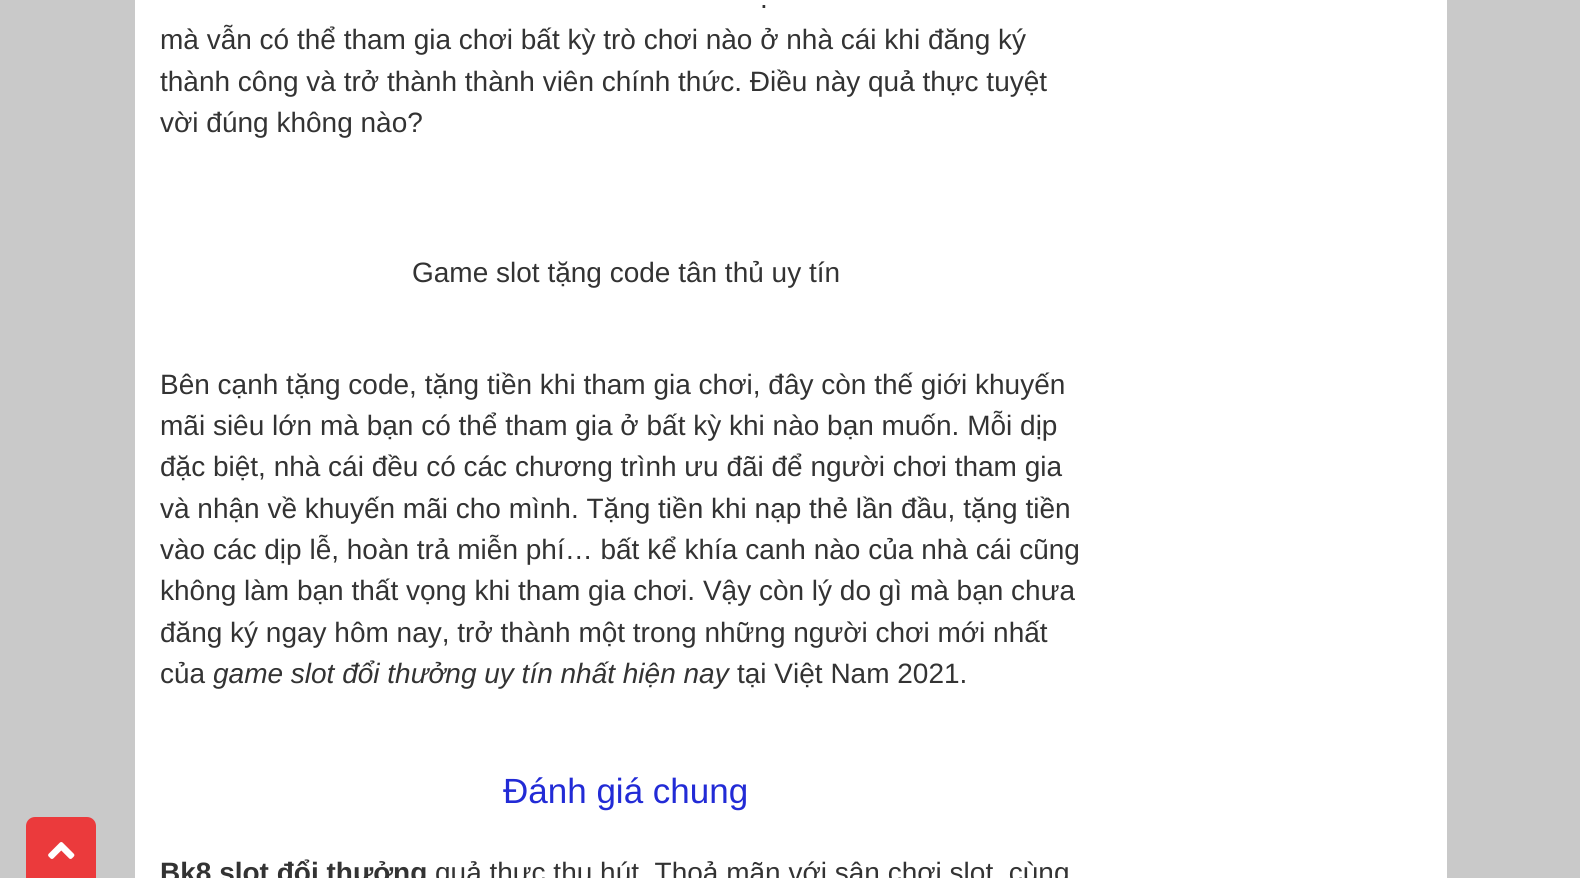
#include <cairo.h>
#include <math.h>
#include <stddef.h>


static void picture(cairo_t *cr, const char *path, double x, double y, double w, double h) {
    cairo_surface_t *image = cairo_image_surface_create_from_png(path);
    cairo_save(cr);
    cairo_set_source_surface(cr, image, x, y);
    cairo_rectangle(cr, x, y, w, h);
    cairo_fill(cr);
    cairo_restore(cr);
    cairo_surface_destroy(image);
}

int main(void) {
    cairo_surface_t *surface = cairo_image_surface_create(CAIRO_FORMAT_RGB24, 1580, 878);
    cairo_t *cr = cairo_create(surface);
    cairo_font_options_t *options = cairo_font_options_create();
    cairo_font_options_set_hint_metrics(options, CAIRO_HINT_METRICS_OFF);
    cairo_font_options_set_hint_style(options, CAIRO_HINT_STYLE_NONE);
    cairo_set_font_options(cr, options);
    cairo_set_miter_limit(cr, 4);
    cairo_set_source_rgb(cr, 0.788, 0.788, 0.788);
    cairo_paint(cr);
    cairo_set_source_rgb(cr, 0.918, 0.227, 0.235);
    cairo_new_path(cr);
    cairo_move_to(cr, 35, 817);
    cairo_line_to(cr, 87, 817);
    cairo_curve_to(cr, 92, 817, 96, 821, 96, 826);
    cairo_line_to(cr, 96, 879);
    cairo_line_to(cr, 26, 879);
    cairo_line_to(cr, 26, 826);
    cairo_curve_to(cr, 26, 821, 30, 817, 35, 817);
    cairo_close_path(cr);
    cairo_fill(cr);
    picture(cr, "img1.png", 48, 842, 27, 17);
    cairo_set_source_rgb(cr, 1, 1, 1);
    cairo_rectangle(cr, 135, 0, 1312, 878);
    cairo_fill(cr);
    cairo_select_font_face(cr, "Liberation Sans", CAIRO_FONT_SLANT_NORMAL, CAIRO_FONT_WEIGHT_NORMAL);
    cairo_set_font_size(cr, 28);
    cairo_set_source_rgb(cr, 0.2, 0.2, 0.2);
    cairo_move_to(cr, 760, 8);
    cairo_show_text(cr, ".");
    cairo_move_to(cr, 160, 49);
    cairo_show_text(cr, "mà vẫn có thể tham gia chơi bất kỳ trò chơi nào ở nhà cái khi đăng ký");
    cairo_move_to(cr, 160, 91);
    cairo_show_text(cr, "thành công và trở thành thành viên chính thức. Điều này quả thực tuyệt");
    cairo_move_to(cr, 160, 132);
    cairo_show_text(cr, "vời đúng không nào?");
    cairo_move_to(cr, 412, 282);
    cairo_show_text(cr, "Game slot tặng code tân thủ uy tín");
    cairo_move_to(cr, 160, 394);
    cairo_show_text(cr, "Bên cạnh tặng code, tặng tiền khi tham gia chơi, đây còn thế giới khuyến");
    cairo_move_to(cr, 160, 435);
    cairo_show_text(cr, "mãi siêu lớn mà bạn có thể tham gia ở bất kỳ khi nào bạn muốn. Mỗi dịp");
    cairo_move_to(cr, 160, 476);
    cairo_show_text(cr, "đặc biệt, nhà cái đều có các chương trình ưu đãi để người chơi tham gia");
    cairo_move_to(cr, 160, 518);
    cairo_show_text(cr, "và nhận về khuyến mãi cho mình. Tặng tiền khi nạp thẻ lần đầu, tặng tiền");
    cairo_move_to(cr, 160, 559);
    cairo_show_text(cr, "vào các dịp lễ, hoàn trả miễn phí… bất kể khía canh nào của nhà cái cũng");
    cairo_move_to(cr, 160, 600);
    cairo_show_text(cr, "không làm bạn thất vọng khi tham gia chơi. Vậy còn lý do gì mà bạn chưa");
    cairo_move_to(cr, 160, 642);
    cairo_show_text(cr, "đăng ký ngay hôm nay, trở thành một trong những người chơi mới nhất");
    cairo_move_to(cr, 160, 683);
    cairo_show_text(cr, "của");
    cairo_select_font_face(cr, "Liberation Sans", CAIRO_FONT_SLANT_ITALIC, CAIRO_FONT_WEIGHT_NORMAL);
    cairo_move_to(cr, 213, 683);
    cairo_show_text(cr, "game slot đổi thưởng uy tín nhất hiện nay");
    cairo_select_font_face(cr, "Liberation Sans", CAIRO_FONT_SLANT_NORMAL, CAIRO_FONT_WEIGHT_NORMAL);
    cairo_move_to(cr, 737, 683);
    cairo_show_text(cr, "tại Việt Nam 2021.");
    cairo_set_font_size(cr, 35);
    cairo_set_source_rgb(cr, 0.133, 0.169, 0.839);
    cairo_move_to(cr, 503, 803);
    cairo_show_text(cr, "Đánh giá chung");
    cairo_select_font_face(cr, "Liberation Sans", CAIRO_FONT_SLANT_NORMAL, CAIRO_FONT_WEIGHT_BOLD);
    cairo_set_font_size(cr, 28);
    cairo_set_source_rgb(cr, 0.2, 0.2, 0.2);
    cairo_move_to(cr, 160, 882);
    cairo_show_text(cr, "Bk8 slot đổi thưởng");
    cairo_select_font_face(cr, "Liberation Sans", CAIRO_FONT_SLANT_NORMAL, CAIRO_FONT_WEIGHT_NORMAL);
    cairo_move_to(cr, 435, 882);
    cairo_show_text(cr, "quả thực thu hút. Thoả mãn với sân chơi slot  cùng");
    cairo_surface_write_to_png(surface, "page.png");
    cairo_font_options_destroy(options);
    cairo_destroy(cr);
    cairo_surface_destroy(surface);
    return 0;
}
